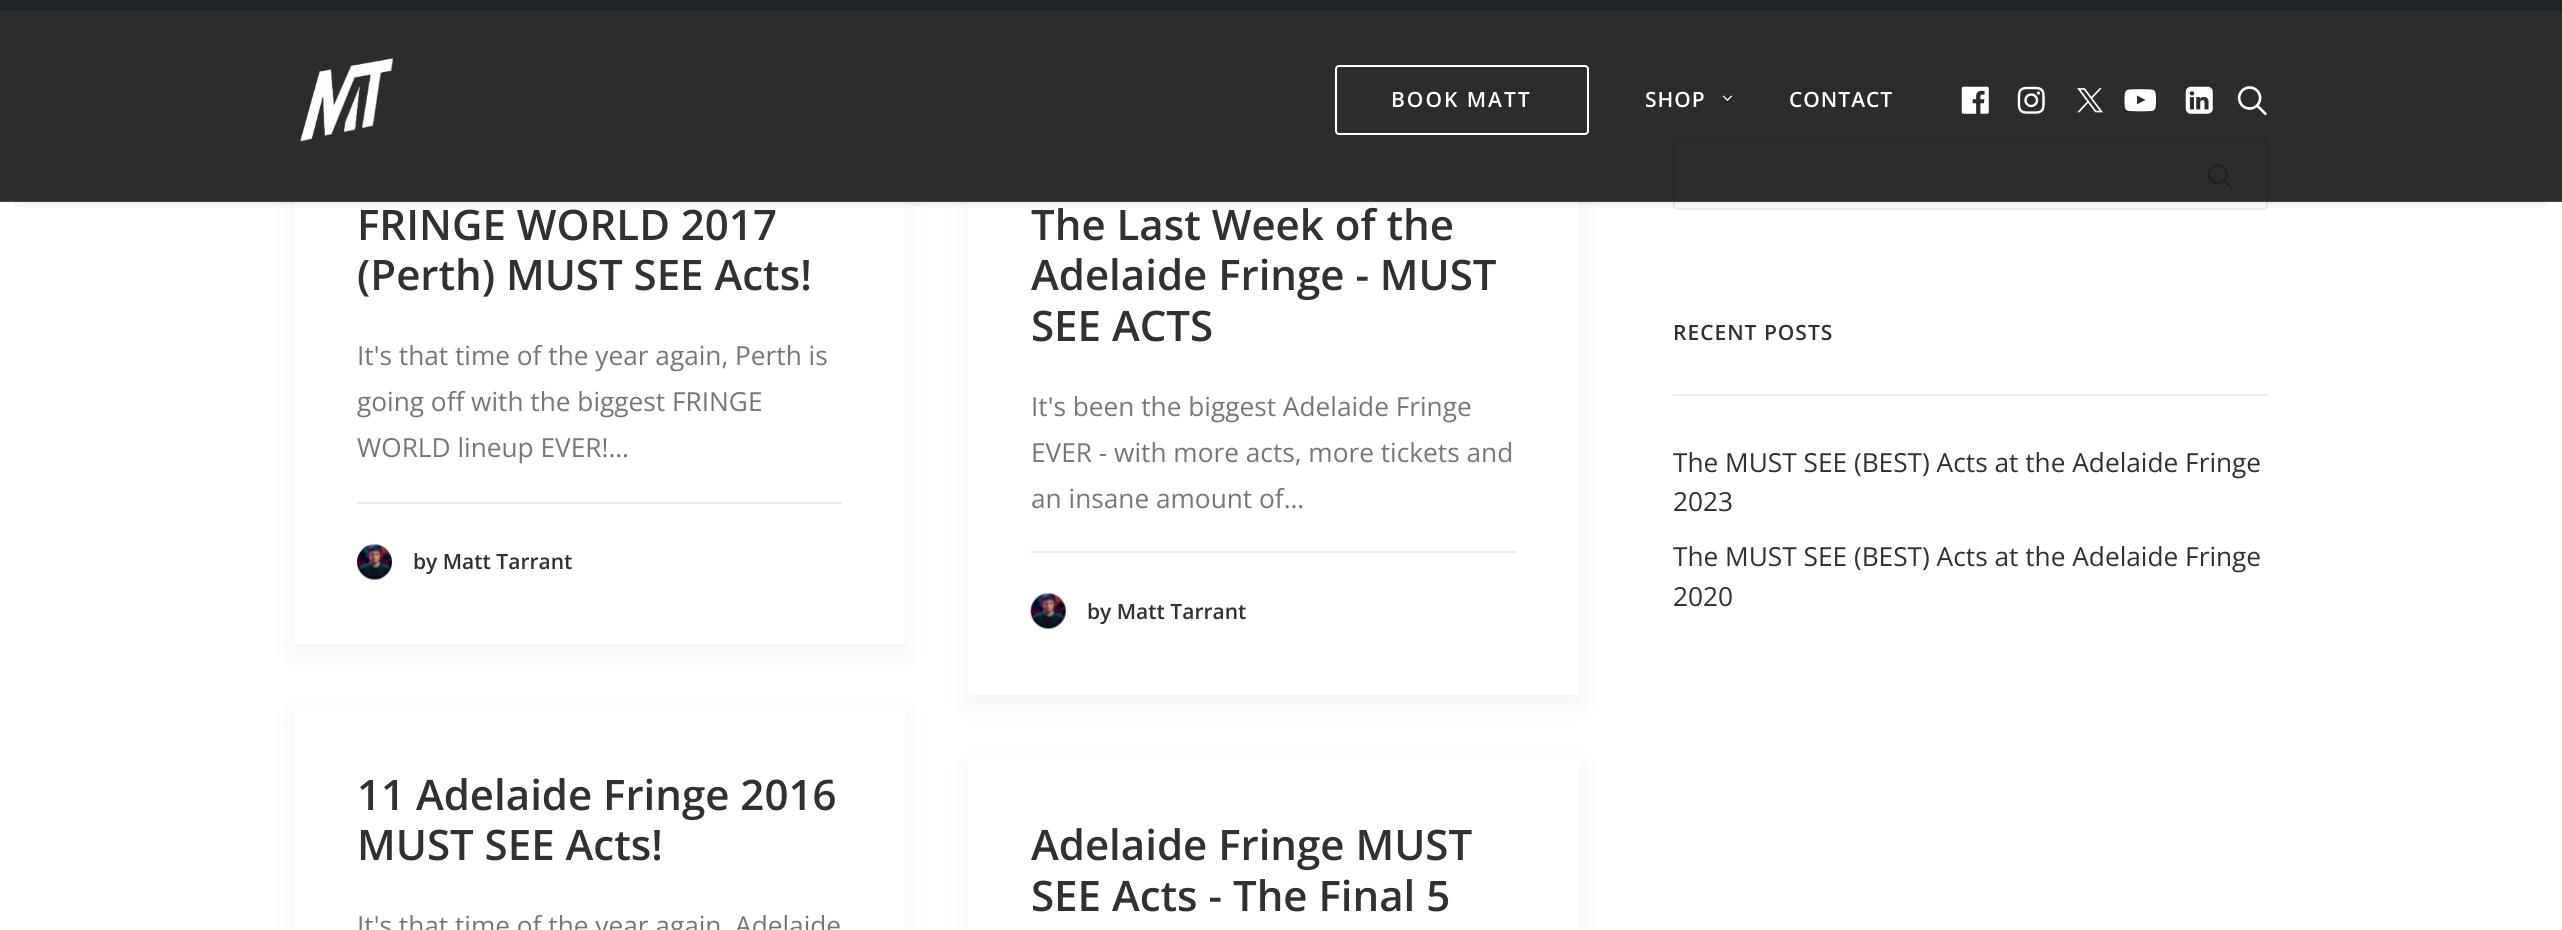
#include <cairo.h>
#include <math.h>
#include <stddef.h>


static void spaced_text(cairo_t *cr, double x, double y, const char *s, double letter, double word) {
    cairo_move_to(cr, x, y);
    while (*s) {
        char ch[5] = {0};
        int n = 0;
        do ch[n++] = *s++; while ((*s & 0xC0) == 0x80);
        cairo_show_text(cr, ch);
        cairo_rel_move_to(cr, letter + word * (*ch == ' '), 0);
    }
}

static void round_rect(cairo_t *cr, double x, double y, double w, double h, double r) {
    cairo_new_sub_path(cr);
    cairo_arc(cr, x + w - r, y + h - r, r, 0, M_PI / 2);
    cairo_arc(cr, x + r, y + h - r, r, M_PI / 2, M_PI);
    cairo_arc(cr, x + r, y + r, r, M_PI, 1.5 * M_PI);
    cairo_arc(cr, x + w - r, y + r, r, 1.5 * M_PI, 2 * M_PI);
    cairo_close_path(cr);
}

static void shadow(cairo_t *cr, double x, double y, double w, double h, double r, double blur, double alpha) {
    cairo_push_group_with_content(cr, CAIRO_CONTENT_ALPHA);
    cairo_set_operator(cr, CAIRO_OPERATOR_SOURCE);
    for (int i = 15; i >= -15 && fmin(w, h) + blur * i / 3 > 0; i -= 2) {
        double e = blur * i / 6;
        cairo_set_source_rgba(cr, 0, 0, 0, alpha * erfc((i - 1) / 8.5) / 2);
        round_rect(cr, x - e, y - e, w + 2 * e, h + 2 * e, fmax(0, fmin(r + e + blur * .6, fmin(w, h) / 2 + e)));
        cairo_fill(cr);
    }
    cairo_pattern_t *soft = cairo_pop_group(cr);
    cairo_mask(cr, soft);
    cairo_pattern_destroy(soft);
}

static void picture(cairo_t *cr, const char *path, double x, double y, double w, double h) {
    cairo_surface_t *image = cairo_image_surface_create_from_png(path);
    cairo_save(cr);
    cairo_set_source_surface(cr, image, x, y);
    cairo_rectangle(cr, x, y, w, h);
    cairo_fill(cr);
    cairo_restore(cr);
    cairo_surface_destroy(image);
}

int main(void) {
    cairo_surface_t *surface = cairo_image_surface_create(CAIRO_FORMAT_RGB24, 2562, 930);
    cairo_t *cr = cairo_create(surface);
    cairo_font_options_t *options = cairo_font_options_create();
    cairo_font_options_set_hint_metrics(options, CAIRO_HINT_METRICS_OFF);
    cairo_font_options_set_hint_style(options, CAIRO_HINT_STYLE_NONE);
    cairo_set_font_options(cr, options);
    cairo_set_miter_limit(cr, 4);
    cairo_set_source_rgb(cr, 0.471, 0.722, 0.729);
    cairo_paint(cr);
    cairo_set_source_rgb(cr, 1, 1, 1);
    cairo_rectangle(cr, 0, 11, 2562, 919);
    cairo_fill(cr);
    cairo_set_source_rgb(cr, 0, 0, 0);
    shadow(cr, 294, 145, 611, 508, 0, 13, 0.05);
    cairo_set_source_rgb(cr, 1, 1, 1);
    cairo_rectangle(cr, 294, 137, 611, 507);
    cairo_fill(cr);
    cairo_set_source_rgb(cr, 0, 0, 0);
    shadow(cr, 968, 145, 611, 559, 0, 13, 0.05);
    cairo_set_source_rgb(cr, 1, 1, 1);
    cairo_rectangle(cr, 968, 137, 611, 558);
    cairo_fill(cr);
    cairo_set_source_rgb(cr, 0.976, 0.976, 0.976);
    cairo_new_path(cr);
    cairo_move_to(cr, 1676, 142);
    cairo_line_to(cr, 2264, 142);
    cairo_curve_to(cr, 2265, 142, 2266, 143, 2266, 144);
    cairo_line_to(cr, 2266, 140);
    cairo_curve_to(cr, 2266, 139, 2265, 138, 2264, 138);
    cairo_line_to(cr, 1677, 138);
    cairo_curve_to(cr, 1676, 138, 1675, 139, 1675, 140);
    cairo_line_to(cr, 1675, 144);
    cairo_close_path(cr);
    cairo_fill(cr);
    round_rect(cr, 1674, 138, 593, 71, 3);
    cairo_set_source_rgb(cr, 0.918, 0.918, 0.918);
    cairo_stroke(cr);
    picture(cr, "img11.png", 2207, 164, 25, 25);
    cairo_save(cr);
    cairo_rectangle(cr, 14, 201, 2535, 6);
    cairo_clip(cr);
    cairo_set_source_rgb(cr, 0, 0, 0);
    shadow(cr, 18, 25, 2527, 166, 0, 9, 0.6);
    cairo_restore(cr);
    cairo_set_source_rgba(cr, 0.078, 0.086, 0.094, 0.9);
    cairo_rectangle(cr, 0, 0, 2562, 201);
    cairo_fill(cr);
    cairo_set_source_rgba(cr, 0.188, 0.192, 0.2, 0.9);
    cairo_rectangle(cr, 0, 200, 2562, 2);
    cairo_fill(cr);
    picture(cr, "img1.png", 300, 58, 94, 84);
    round_rect(cr, 1336, 66, 252, 68, 3);
    cairo_set_source_rgb(cr, 1, 1, 1);
    cairo_stroke(cr);
    cairo_select_font_face(cr, "Open Sans SemiBold", CAIRO_FONT_SLANT_NORMAL, CAIRO_FONT_WEIGHT_NORMAL);
    cairo_set_font_size(cr, 21);
    spaced_text(cr, 1391, 107, "BOOK MATT", 2, 0);
    spaced_text(cr, 1645, 107, "SHOP", 1, 0);
    picture(cr, "img2.png", 1722, 95, 10, 6);
    spaced_text(cr, 1789, 107, "CONTACT", 1, 0);
    picture(cr, "img3.png", 1961, 86, 28, 28);
    picture(cr, "img4.png", 2017, 86, 28, 28);
    picture(cr, "img5.png", 2077, 88, 26, 25);
    picture(cr, "img6.png", 2124, 89, 32, 23);
    picture(cr, "img7.png", 2185, 86, 28, 28);
    picture(cr, "img8.png", 2237, 86, 30, 29);
    cairo_set_font_size(cr, 42);
    cairo_set_source_rgb(cr, 0.188, 0.192, 0.2);
    cairo_move_to(cr, 357, 240);
    cairo_show_text(cr, "FRINGE WORLD 2017");
    cairo_move_to(cr, 357, 290);
    cairo_show_text(cr, "(Perth) MUST SEE Acts!");
    cairo_select_font_face(cr, "Open Sans", CAIRO_FONT_SLANT_NORMAL, CAIRO_FONT_WEIGHT_NORMAL);
    cairo_set_font_size(cr, 26.25);
    cairo_set_source_rgb(cr, 0.467, 0.467, 0.467);
    cairo_move_to(cr, 357, 365);
    cairo_show_text(cr, "It's that time of the year again, Perth is");
    cairo_move_to(cr, 357, 411);
    cairo_show_text(cr, "going off with the biggest FRINGE");
    cairo_move_to(cr, 357, 457);
    cairo_show_text(cr, "WORLD lineup EVER!…");
    cairo_set_source_rgb(cr, 0.918, 0.918, 0.918);
    cairo_rectangle(cr, 357, 502, 485, 2);
    cairo_fill(cr);
    picture(cr, "img9.png", 357, 544, 35, 36);
    cairo_select_font_face(cr, "Open Sans SemiBold", CAIRO_FONT_SLANT_NORMAL, CAIRO_FONT_WEIGHT_NORMAL);
    cairo_set_font_size(cr, 21);
    cairo_set_source_rgb(cr, 0.188, 0.192, 0.2);
    cairo_move_to(cr, 413, 569);
    cairo_show_text(cr, "by Matt Tarrant");
    cairo_set_font_size(cr, 42);
    cairo_move_to(cr, 1031, 240);
    cairo_show_text(cr, "The Last Week of the");
    cairo_move_to(cr, 1031, 290);
    cairo_show_text(cr, "Adelaide Fringe - MUST");
    cairo_move_to(cr, 1031, 341);
    cairo_show_text(cr, "SEE ACTS");
    cairo_select_font_face(cr, "Open Sans", CAIRO_FONT_SLANT_NORMAL, CAIRO_FONT_WEIGHT_NORMAL);
    cairo_set_font_size(cr, 26.25);
    cairo_set_source_rgb(cr, 0.467, 0.467, 0.467);
    cairo_move_to(cr, 1031, 416);
    cairo_show_text(cr, "It's been the biggest Adelaide Fringe");
    cairo_move_to(cr, 1031, 462);
    cairo_show_text(cr, "EVER - with more acts, more tickets and");
    cairo_move_to(cr, 1031, 508);
    cairo_show_text(cr, "an insane amount of…");
    cairo_set_source_rgb(cr, 0.918, 0.918, 0.918);
    cairo_rectangle(cr, 1031, 551, 485, 2);
    cairo_fill(cr);
    picture(cr, "img10.png", 1030, 593, 36, 36);
    cairo_select_font_face(cr, "Open Sans SemiBold", CAIRO_FONT_SLANT_NORMAL, CAIRO_FONT_WEIGHT_NORMAL);
    cairo_set_font_size(cr, 21);
    cairo_set_source_rgb(cr, 0.188, 0.192, 0.2);
    cairo_move_to(cr, 1087, 619);
    cairo_show_text(cr, "by Matt Tarrant");
    cairo_set_source_rgb(cr, 0, 0, 0);
    shadow(cr, 294, 716, 611, 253, 0, 13, 0.05);
    cairo_set_source_rgb(cr, 1, 1, 1);
    cairo_rectangle(cr, 294, 707, 611, 223);
    cairo_fill(cr);
    cairo_set_font_size(cr, 42);
    cairo_set_source_rgb(cr, 0.188, 0.192, 0.2);
    cairo_move_to(cr, 357, 810);
    cairo_show_text(cr, "11 Adelaide Fringe 2016");
    cairo_move_to(cr, 357, 860);
    cairo_show_text(cr, "MUST SEE Acts!");
    cairo_select_font_face(cr, "Open Sans", CAIRO_FONT_SLANT_NORMAL, CAIRO_FONT_WEIGHT_NORMAL);
    cairo_set_font_size(cr, 26.25);
    cairo_set_source_rgb(cr, 0.467, 0.467, 0.467);
    cairo_move_to(cr, 357, 935);
    cairo_show_text(cr, "It's that time of the year again, Adelaide");
    cairo_set_source_rgb(cr, 0, 0, 0);
    shadow(cr, 968, 767, 611, 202, 0, 13, 0.05);
    cairo_set_source_rgb(cr, 1, 1, 1);
    cairo_rectangle(cr, 968, 758, 611, 172);
    cairo_fill(cr);
    cairo_select_font_face(cr, "Open Sans SemiBold", CAIRO_FONT_SLANT_NORMAL, CAIRO_FONT_WEIGHT_NORMAL);
    cairo_set_font_size(cr, 42);
    cairo_set_source_rgb(cr, 0.188, 0.192, 0.2);
    cairo_move_to(cr, 1031, 860);
    cairo_show_text(cr, "Adelaide Fringe MUST");
    cairo_move_to(cr, 1031, 911);
    cairo_show_text(cr, "SEE Acts - The Final 5");
    cairo_set_source_rgb(cr, 0.918, 0.918, 0.918);
    cairo_rectangle(cr, 1673, 394, 595, 2);
    cairo_fill(cr);
    cairo_set_font_size(cr, 21);
    cairo_set_source_rgb(cr, 0.188, 0.192, 0.2);
    spaced_text(cr, 1673, 340, "RECENT POSTS", 1, 0);
    cairo_select_font_face(cr, "Open Sans", CAIRO_FONT_SLANT_NORMAL, CAIRO_FONT_WEIGHT_NORMAL);
    cairo_set_font_size(cr, 26.25);
    cairo_move_to(cr, 1673, 472);
    cairo_show_text(cr, "The MUST SEE (BEST) Acts at the Adelaide Fringe");
    cairo_move_to(cr, 1673, 511);
    cairo_show_text(cr, "2023");
    cairo_move_to(cr, 1673, 566);
    cairo_show_text(cr, "The MUST SEE (BEST) Acts at the Adelaide Fringe");
    cairo_move_to(cr, 1673, 606);
    cairo_show_text(cr, "2020");
    cairo_surface_write_to_png(surface, "page.png");
    cairo_font_options_destroy(options);
    cairo_destroy(cr);
    cairo_surface_destroy(surface);
    return 0;
}
